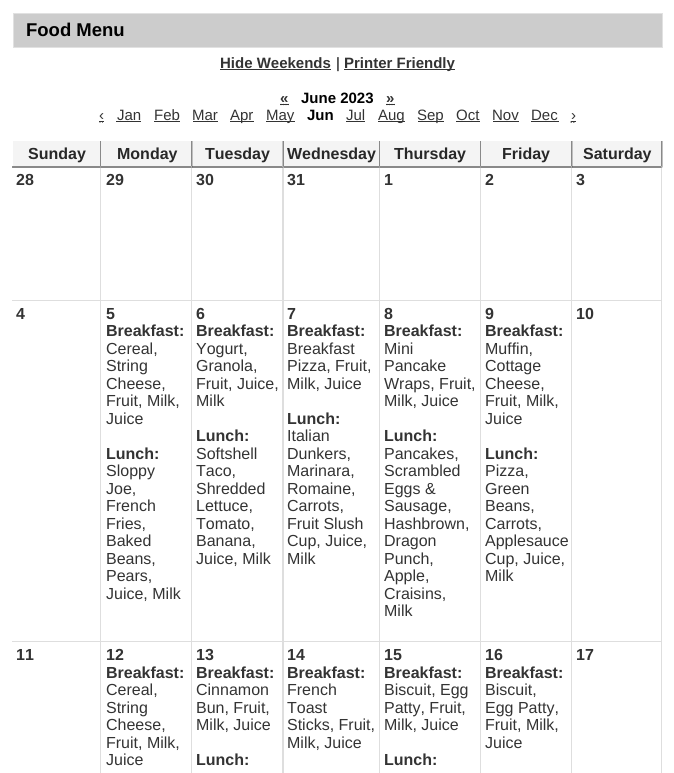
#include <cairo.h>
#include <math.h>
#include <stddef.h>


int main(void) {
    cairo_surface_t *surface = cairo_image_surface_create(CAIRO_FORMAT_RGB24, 674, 773);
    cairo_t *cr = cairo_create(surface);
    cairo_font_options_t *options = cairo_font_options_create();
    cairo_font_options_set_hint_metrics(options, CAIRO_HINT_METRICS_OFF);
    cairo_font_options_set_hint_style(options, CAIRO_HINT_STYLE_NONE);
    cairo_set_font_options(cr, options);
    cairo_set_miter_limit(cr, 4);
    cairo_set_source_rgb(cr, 1, 1, 1);
    cairo_paint(cr);
    cairo_set_source_rgb(cr, 0.8, 0.8, 0.8);
    cairo_rectangle(cr, 13.5, 13.5, 649, 34);
    cairo_fill_preserve(cr);
    cairo_set_source_rgb(cr, 0.882, 0.882, 0.882);
    cairo_set_line_width(cr, 1);
    cairo_stroke(cr);
    cairo_select_font_face(cr, "Liberation Sans", CAIRO_FONT_SLANT_NORMAL, CAIRO_FONT_WEIGHT_BOLD);
    cairo_set_font_size(cr, 18.5);
    cairo_set_source_rgb(cr, 0, 0, 0);
    cairo_move_to(cr, 26, 36);
    cairo_show_text(cr, "Food Menu");
    cairo_set_font_size(cr, 15);
    cairo_set_source_rgb(cr, 0.2, 0.2, 0.2);
    cairo_move_to(cr, 220, 68);
    cairo_show_text(cr, "Hide Weekends");
    cairo_rectangle(cr, 220, 69, 111, 1);
    cairo_fill(cr);
    cairo_select_font_face(cr, "Liberation Sans", CAIRO_FONT_SLANT_NORMAL, CAIRO_FONT_WEIGHT_NORMAL);
    cairo_set_source_rgb(cr, 0, 0, 0);
    cairo_move_to(cr, 336, 68);
    cairo_show_text(cr, "|");
    cairo_set_source_rgb(cr, 0.2, 0.2, 0.2);
    cairo_rectangle(cr, 344, 69, 111, 1);
    cairo_fill(cr);
    cairo_select_font_face(cr, "Liberation Sans", CAIRO_FONT_SLANT_NORMAL, CAIRO_FONT_WEIGHT_BOLD);
    cairo_move_to(cr, 344, 68);
    cairo_show_text(cr, "Printer Friendly");
    cairo_move_to(cr, 280, 103);
    cairo_show_text(cr, "«");
    cairo_new_path(cr);
    cairo_move_to(cr, 280.5, 104.5);
    cairo_line_to(cr, 281.5, 104.5);
    cairo_move_to(cr, 283, 104.5);
    cairo_line_to(cr, 284, 104.5);
    cairo_move_to(cr, 285.5, 104.5);
    cairo_line_to(cr, 286.5, 104.5);
    cairo_move_to(cr, 288, 104.5);
    cairo_line_to(cr, 288.5, 104.5);
    cairo_set_line_width(cr, 1.2);
    cairo_stroke(cr);
    cairo_rectangle(cr, 280, 104, 9, 1);
    cairo_fill(cr);
    cairo_set_source_rgb(cr, 0, 0, 0);
    cairo_move_to(cr, 301, 103);
    cairo_show_text(cr, "June 2023");
    cairo_set_source_rgb(cr, 0.2, 0.2, 0.2);
    cairo_move_to(cr, 386, 103);
    cairo_show_text(cr, "»");
    cairo_new_path(cr);
    cairo_move_to(cr, 386.5, 104.5);
    cairo_line_to(cr, 387.5, 104.5);
    cairo_move_to(cr, 389, 104.5);
    cairo_line_to(cr, 390, 104.5);
    cairo_move_to(cr, 391.5, 104.5);
    cairo_line_to(cr, 392.5, 104.5);
    cairo_move_to(cr, 394, 104.5);
    cairo_line_to(cr, 394.5, 104.5);
    cairo_stroke(cr);
    cairo_rectangle(cr, 386, 104, 9, 1);
    cairo_fill(cr);
    cairo_select_font_face(cr, "Liberation Sans", CAIRO_FONT_SLANT_NORMAL, CAIRO_FONT_WEIGHT_NORMAL);
    cairo_move_to(cr, 99, 120);
    cairo_show_text(cr, "‹");
    cairo_new_path(cr);
    cairo_move_to(cr, 99.5, 122);
    cairo_line_to(cr, 100.5, 122);
    cairo_move_to(cr, 102, 122);
    cairo_line_to(cr, 103, 122);
    cairo_stroke(cr);
    cairo_rectangle(cr, 99, 121, 5, 1);
    cairo_fill(cr);
    cairo_move_to(cr, 117, 120);
    cairo_show_text(cr, "Jan");
    cairo_rectangle(cr, 116, 121, 25, 1);
    cairo_fill(cr);
    cairo_move_to(cr, 154, 120);
    cairo_show_text(cr, "Feb");
    cairo_rectangle(cr, 154, 121, 26, 1);
    cairo_fill(cr);
    cairo_move_to(cr, 192, 120);
    cairo_show_text(cr, "Mar");
    cairo_rectangle(cr, 193, 121, 25, 1);
    cairo_fill(cr);
    cairo_rectangle(cr, 230, 121, 24, 1);
    cairo_fill(cr);
    cairo_move_to(cr, 230, 120);
    cairo_show_text(cr, "Apr");
    cairo_rectangle(cr, 266, 121, 29, 1);
    cairo_fill(cr);
    cairo_move_to(cr, 266, 120);
    cairo_show_text(cr, "May");
    cairo_select_font_face(cr, "Liberation Sans", CAIRO_FONT_SLANT_NORMAL, CAIRO_FONT_WEIGHT_BOLD);
    cairo_set_source_rgb(cr, 0, 0, 0);
    cairo_move_to(cr, 307, 120);
    cairo_show_text(cr, "Jun");
    cairo_select_font_face(cr, "Liberation Sans", CAIRO_FONT_SLANT_NORMAL, CAIRO_FONT_WEIGHT_NORMAL);
    cairo_set_source_rgb(cr, 0.2, 0.2, 0.2);
    cairo_move_to(cr, 346, 120);
    cairo_show_text(cr, "Jul");
    cairo_rectangle(cr, 346, 121, 19, 1);
    cairo_fill(cr);
    cairo_rectangle(cr, 378, 121, 27, 1);
    cairo_fill(cr);
    cairo_move_to(cr, 378, 120);
    cairo_show_text(cr, "Aug");
    cairo_rectangle(cr, 418, 121, 26, 1);
    cairo_fill(cr);
    cairo_move_to(cr, 417, 120);
    cairo_show_text(cr, "Sep");
    cairo_move_to(cr, 456, 120);
    cairo_show_text(cr, "Oct");
    cairo_rectangle(cr, 456, 121, 24, 1);
    cairo_fill(cr);
    cairo_move_to(cr, 492, 120);
    cairo_show_text(cr, "Nov");
    cairo_rectangle(cr, 493, 121, 26, 1);
    cairo_fill(cr);
    cairo_move_to(cr, 531, 120);
    cairo_show_text(cr, "Dec");
    cairo_rectangle(cr, 531, 121, 28, 1);
    cairo_fill(cr);
    cairo_move_to(cr, 571, 120);
    cairo_show_text(cr, "›");
    cairo_new_path(cr);
    cairo_move_to(cr, 570.5, 122);
    cairo_line_to(cr, 572, 122);
    cairo_move_to(cr, 573, 122);
    cairo_line_to(cr, 574.5, 122);
    cairo_stroke(cr);
    cairo_rectangle(cr, 571, 121, 5, 1);
    cairo_fill(cr);
    cairo_set_source_rgb(cr, 0.957, 0.957, 0.957);
    cairo_rectangle(cr, 13, 141, 650, 27);
    cairo_fill(cr);
    cairo_set_source_rgb(cr, 0.537, 0.537, 0.537);
    cairo_new_path(cr);
    cairo_move_to(cr, 101, 141);
    cairo_line_to(cr, 101, 167.5);
    cairo_line_to(cr, 100, 166);
    cairo_line_to(cr, 100, 141);
    cairo_close_path(cr);
    cairo_fill(cr);
    cairo_set_source_rgba(cr, 0, 0, 0, 0.44);
    cairo_new_path(cr);
    cairo_move_to(cr, 101, 168);
    cairo_line_to(cr, 12, 168);
    cairo_line_to(cr, 12, 166);
    cairo_line_to(cr, 100, 166);
    cairo_close_path(cr);
    cairo_fill(cr);
    cairo_select_font_face(cr, "Liberation Sans", CAIRO_FONT_SLANT_NORMAL, CAIRO_FONT_WEIGHT_BOLD);
    cairo_set_font_size(cr, 16);
    cairo_set_source_rgb(cr, 0.157, 0.157, 0.157);
    cairo_move_to(cr, 28, 159);
    cairo_show_text(cr, "Sunday");
    cairo_set_source_rgb(cr, 0.537, 0.537, 0.537);
    cairo_new_path(cr);
    cairo_move_to(cr, 192.5, 141);
    cairo_line_to(cr, 192.5, 167.5);
    cairo_line_to(cr, 191, 166);
    cairo_line_to(cr, 191, 141);
    cairo_close_path(cr);
    cairo_fill(cr);
    cairo_new_path(cr);
    cairo_move_to(cr, 192, 168);
    cairo_line_to(cr, 101, 168);
    cairo_line_to(cr, 101, 166);
    cairo_line_to(cr, 191, 166);
    cairo_close_path(cr);
    cairo_fill(cr);
    cairo_set_source_rgb(cr, 0.157, 0.157, 0.157);
    cairo_move_to(cr, 117, 159);
    cairo_show_text(cr, "Monday");
    cairo_set_source_rgb(cr, 0.537, 0.537, 0.537);
    cairo_new_path(cr);
    cairo_move_to(cr, 284, 141);
    cairo_line_to(cr, 284, 167.5);
    cairo_line_to(cr, 282.5, 166);
    cairo_line_to(cr, 282.5, 141);
    cairo_close_path(cr);
    cairo_fill(cr);
    cairo_set_source_rgba(cr, 0, 0, 0, 0.44);
    cairo_new_path(cr);
    cairo_move_to(cr, 284, 168);
    cairo_line_to(cr, 192, 168);
    cairo_line_to(cr, 192, 166);
    cairo_line_to(cr, 282, 166);
    cairo_close_path(cr);
    cairo_fill(cr);
    cairo_set_source_rgb(cr, 0.157, 0.157, 0.157);
    cairo_move_to(cr, 205, 159);
    cairo_show_text(cr, "Tuesday");
    cairo_set_source_rgb(cr, 0.537, 0.537, 0.537);
    cairo_new_path(cr);
    cairo_move_to(cr, 380, 141);
    cairo_line_to(cr, 380, 167.5);
    cairo_line_to(cr, 379, 166);
    cairo_line_to(cr, 379, 141);
    cairo_close_path(cr);
    cairo_fill(cr);
    cairo_set_source_rgba(cr, 0, 0, 0, 0.44);
    cairo_new_path(cr);
    cairo_move_to(cr, 380, 168);
    cairo_line_to(cr, 284, 168);
    cairo_line_to(cr, 284, 166);
    cairo_line_to(cr, 379, 166);
    cairo_close_path(cr);
    cairo_fill(cr);
    cairo_set_source_rgb(cr, 0.157, 0.157, 0.157);
    cairo_move_to(cr, 287, 159);
    cairo_show_text(cr, "Wednesday");
    cairo_set_source_rgb(cr, 0.537, 0.537, 0.537);
    cairo_new_path(cr);
    cairo_move_to(cr, 481, 141);
    cairo_line_to(cr, 481, 167.5);
    cairo_line_to(cr, 480, 166);
    cairo_line_to(cr, 480, 141);
    cairo_close_path(cr);
    cairo_fill(cr);
    cairo_set_source_rgba(cr, 0, 0, 0, 0.44);
    cairo_new_path(cr);
    cairo_move_to(cr, 481, 168);
    cairo_line_to(cr, 380, 168);
    cairo_line_to(cr, 380, 166);
    cairo_line_to(cr, 480, 166);
    cairo_close_path(cr);
    cairo_fill(cr);
    cairo_set_source_rgb(cr, 0.157, 0.157, 0.157);
    cairo_move_to(cr, 394, 159);
    cairo_show_text(cr, "Thursday");
    cairo_set_source_rgb(cr, 0.537, 0.537, 0.537);
    cairo_new_path(cr);
    cairo_move_to(cr, 572.5, 141);
    cairo_line_to(cr, 572.5, 167.5);
    cairo_line_to(cr, 571, 166);
    cairo_line_to(cr, 571, 141);
    cairo_close_path(cr);
    cairo_fill(cr);
    cairo_new_path(cr);
    cairo_move_to(cr, 572, 168);
    cairo_line_to(cr, 481, 168);
    cairo_line_to(cr, 481, 166);
    cairo_line_to(cr, 571, 166);
    cairo_close_path(cr);
    cairo_fill(cr);
    cairo_set_source_rgb(cr, 0.157, 0.157, 0.157);
    cairo_move_to(cr, 502, 159);
    cairo_show_text(cr, "Friday");
    cairo_set_source_rgb(cr, 0.537, 0.537, 0.537);
    cairo_new_path(cr);
    cairo_move_to(cr, 662.5, 141);
    cairo_line_to(cr, 662.5, 167.5);
    cairo_line_to(cr, 661, 166);
    cairo_line_to(cr, 661, 141);
    cairo_close_path(cr);
    cairo_fill(cr);
    cairo_set_source_rgba(cr, 0, 0, 0, 0.44);
    cairo_new_path(cr);
    cairo_move_to(cr, 662, 168);
    cairo_line_to(cr, 572, 168);
    cairo_line_to(cr, 572, 166);
    cairo_line_to(cr, 661, 166);
    cairo_close_path(cr);
    cairo_fill(cr);
    cairo_set_source_rgb(cr, 0.157, 0.157, 0.157);
    cairo_move_to(cr, 583, 159);
    cairo_show_text(cr, "Saturday");
    cairo_set_source_rgb(cr, 0.871, 0.871, 0.871);
    cairo_new_path(cr);
    cairo_move_to(cr, 101, 168);
    cairo_line_to(cr, 101, 301);
    cairo_line_to(cr, 100, 300);
    cairo_line_to(cr, 100, 168);
    cairo_close_path(cr);
    cairo_fill(cr);
    cairo_set_source_rgba(cr, 0, 0, 0, 0.13);
    cairo_new_path(cr);
    cairo_move_to(cr, 101, 301);
    cairo_line_to(cr, 12, 301);
    cairo_line_to(cr, 12, 300);
    cairo_line_to(cr, 100, 300);
    cairo_close_path(cr);
    cairo_fill(cr);
    cairo_set_source_rgb(cr, 0.2, 0.2, 0.2);
    cairo_move_to(cr, 16, 185);
    cairo_show_text(cr, "28");
    cairo_set_source_rgb(cr, 0.871, 0.871, 0.871);
    cairo_new_path(cr);
    cairo_move_to(cr, 192, 168);
    cairo_line_to(cr, 192, 301);
    cairo_line_to(cr, 191, 300);
    cairo_line_to(cr, 191, 168);
    cairo_close_path(cr);
    cairo_fill(cr);
    cairo_set_source_rgba(cr, 0, 0, 0, 0.13);
    cairo_new_path(cr);
    cairo_move_to(cr, 192, 301);
    cairo_line_to(cr, 101, 301);
    cairo_line_to(cr, 101, 300);
    cairo_line_to(cr, 191, 300);
    cairo_close_path(cr);
    cairo_fill(cr);
    cairo_set_source_rgb(cr, 0.2, 0.2, 0.2);
    cairo_move_to(cr, 106, 185);
    cairo_show_text(cr, "29");
    cairo_set_source_rgb(cr, 0.871, 0.871, 0.871);
    cairo_new_path(cr);
    cairo_move_to(cr, 284, 168);
    cairo_line_to(cr, 284, 301);
    cairo_line_to(cr, 282, 300);
    cairo_line_to(cr, 282, 168);
    cairo_close_path(cr);
    cairo_fill(cr);
    cairo_set_source_rgba(cr, 0, 0, 0, 0.13);
    cairo_new_path(cr);
    cairo_move_to(cr, 284, 301);
    cairo_line_to(cr, 192, 301);
    cairo_line_to(cr, 192, 300);
    cairo_line_to(cr, 282, 300);
    cairo_close_path(cr);
    cairo_fill(cr);
    cairo_set_source_rgb(cr, 0.2, 0.2, 0.2);
    cairo_move_to(cr, 196, 185);
    cairo_show_text(cr, "30");
    cairo_set_source_rgb(cr, 0.871, 0.871, 0.871);
    cairo_new_path(cr);
    cairo_move_to(cr, 380, 168);
    cairo_line_to(cr, 380, 301);
    cairo_line_to(cr, 379, 300);
    cairo_line_to(cr, 379, 168);
    cairo_close_path(cr);
    cairo_fill(cr);
    cairo_set_source_rgba(cr, 0, 0, 0, 0.13);
    cairo_new_path(cr);
    cairo_move_to(cr, 380, 301);
    cairo_line_to(cr, 284, 301);
    cairo_line_to(cr, 284, 300);
    cairo_line_to(cr, 379, 300);
    cairo_close_path(cr);
    cairo_fill(cr);
    cairo_set_source_rgb(cr, 0.2, 0.2, 0.2);
    cairo_move_to(cr, 287, 185);
    cairo_show_text(cr, "31");
    cairo_set_source_rgb(cr, 0.871, 0.871, 0.871);
    cairo_new_path(cr);
    cairo_move_to(cr, 481, 168);
    cairo_line_to(cr, 481, 301);
    cairo_line_to(cr, 480, 300);
    cairo_line_to(cr, 480, 168);
    cairo_close_path(cr);
    cairo_fill(cr);
    cairo_set_source_rgba(cr, 0, 0, 0, 0.13);
    cairo_new_path(cr);
    cairo_move_to(cr, 481, 301);
    cairo_line_to(cr, 380, 301);
    cairo_line_to(cr, 380, 300);
    cairo_line_to(cr, 480, 300);
    cairo_close_path(cr);
    cairo_fill(cr);
    cairo_set_source_rgb(cr, 0.2, 0.2, 0.2);
    cairo_move_to(cr, 384, 185);
    cairo_show_text(cr, "1");
    cairo_set_source_rgb(cr, 0.871, 0.871, 0.871);
    cairo_new_path(cr);
    cairo_move_to(cr, 572, 168);
    cairo_line_to(cr, 572, 301);
    cairo_line_to(cr, 571, 300);
    cairo_line_to(cr, 571, 168);
    cairo_close_path(cr);
    cairo_fill(cr);
    cairo_set_source_rgba(cr, 0, 0, 0, 0.13);
    cairo_new_path(cr);
    cairo_move_to(cr, 572, 301);
    cairo_line_to(cr, 481, 301);
    cairo_line_to(cr, 481, 300);
    cairo_line_to(cr, 571, 300);
    cairo_close_path(cr);
    cairo_fill(cr);
    cairo_set_source_rgb(cr, 0.2, 0.2, 0.2);
    cairo_move_to(cr, 485, 185);
    cairo_show_text(cr, "2");
    cairo_set_source_rgb(cr, 0.871, 0.871, 0.871);
    cairo_new_path(cr);
    cairo_move_to(cr, 662, 168);
    cairo_line_to(cr, 662, 301);
    cairo_line_to(cr, 661, 300);
    cairo_line_to(cr, 661, 168);
    cairo_close_path(cr);
    cairo_fill(cr);
    cairo_set_source_rgba(cr, 0, 0, 0, 0.13);
    cairo_new_path(cr);
    cairo_move_to(cr, 662, 301);
    cairo_line_to(cr, 572, 301);
    cairo_line_to(cr, 572, 300);
    cairo_line_to(cr, 661, 300);
    cairo_close_path(cr);
    cairo_fill(cr);
    cairo_set_source_rgb(cr, 0.2, 0.2, 0.2);
    cairo_move_to(cr, 576, 185);
    cairo_show_text(cr, "3");
    cairo_set_source_rgb(cr, 0.871, 0.871, 0.871);
    cairo_new_path(cr);
    cairo_move_to(cr, 101, 301);
    cairo_line_to(cr, 101, 642);
    cairo_line_to(cr, 100, 641);
    cairo_line_to(cr, 100, 301);
    cairo_close_path(cr);
    cairo_fill(cr);
    cairo_set_source_rgba(cr, 0, 0, 0, 0.13);
    cairo_new_path(cr);
    cairo_move_to(cr, 101, 642);
    cairo_line_to(cr, 12, 642);
    cairo_line_to(cr, 12, 641);
    cairo_line_to(cr, 100, 641);
    cairo_close_path(cr);
    cairo_fill(cr);
    cairo_set_source_rgb(cr, 0.2, 0.2, 0.2);
    cairo_move_to(cr, 16, 319);
    cairo_show_text(cr, "4");
    cairo_set_source_rgb(cr, 0.871, 0.871, 0.871);
    cairo_new_path(cr);
    cairo_move_to(cr, 192, 301);
    cairo_line_to(cr, 192, 642);
    cairo_line_to(cr, 191, 641);
    cairo_line_to(cr, 191, 301);
    cairo_close_path(cr);
    cairo_fill(cr);
    cairo_set_source_rgba(cr, 0, 0, 0, 0.13);
    cairo_new_path(cr);
    cairo_move_to(cr, 192, 642);
    cairo_line_to(cr, 101, 642);
    cairo_line_to(cr, 101, 641);
    cairo_line_to(cr, 191, 641);
    cairo_close_path(cr);
    cairo_fill(cr);
    cairo_set_source_rgb(cr, 0.2, 0.2, 0.2);
    cairo_move_to(cr, 106, 319);
    cairo_show_text(cr, "5");
    cairo_move_to(cr, 106, 336);
    cairo_show_text(cr, "Breakfast:");
    cairo_select_font_face(cr, "Liberation Sans", CAIRO_FONT_SLANT_NORMAL, CAIRO_FONT_WEIGHT_NORMAL);
    cairo_move_to(cr, 106, 354);
    cairo_show_text(cr, "Cereal,");
    cairo_move_to(cr, 106, 371);
    cairo_show_text(cr, "String");
    cairo_move_to(cr, 106, 389);
    cairo_show_text(cr, "Cheese,");
    cairo_move_to(cr, 106, 406);
    cairo_show_text(cr, "Fruit, Milk,");
    cairo_move_to(cr, 106, 424);
    cairo_show_text(cr, "Juice");
    cairo_select_font_face(cr, "Liberation Sans", CAIRO_FONT_SLANT_NORMAL, CAIRO_FONT_WEIGHT_BOLD);
    cairo_move_to(cr, 106, 459);
    cairo_show_text(cr, "Lunch:");
    cairo_select_font_face(cr, "Liberation Sans", CAIRO_FONT_SLANT_NORMAL, CAIRO_FONT_WEIGHT_NORMAL);
    cairo_move_to(cr, 106, 476);
    cairo_show_text(cr, "Sloppy");
    cairo_move_to(cr, 106, 494);
    cairo_show_text(cr, "Joe,");
    cairo_move_to(cr, 106, 511);
    cairo_show_text(cr, "French");
    cairo_move_to(cr, 106, 529);
    cairo_show_text(cr, "Fries,");
    cairo_move_to(cr, 106, 546);
    cairo_show_text(cr, "Baked");
    cairo_move_to(cr, 106, 564);
    cairo_show_text(cr, "Beans,");
    cairo_move_to(cr, 106, 581);
    cairo_show_text(cr, "Pears,");
    cairo_move_to(cr, 106, 599);
    cairo_show_text(cr, "Juice, Milk");
    cairo_set_source_rgb(cr, 0.871, 0.871, 0.871);
    cairo_new_path(cr);
    cairo_move_to(cr, 284, 301);
    cairo_line_to(cr, 284, 642);
    cairo_line_to(cr, 282, 641);
    cairo_line_to(cr, 282, 301);
    cairo_close_path(cr);
    cairo_fill(cr);
    cairo_set_source_rgba(cr, 0, 0, 0, 0.13);
    cairo_new_path(cr);
    cairo_move_to(cr, 284, 642);
    cairo_line_to(cr, 192, 642);
    cairo_line_to(cr, 192, 641);
    cairo_line_to(cr, 282, 641);
    cairo_close_path(cr);
    cairo_fill(cr);
    cairo_select_font_face(cr, "Liberation Sans", CAIRO_FONT_SLANT_NORMAL, CAIRO_FONT_WEIGHT_BOLD);
    cairo_set_source_rgb(cr, 0.2, 0.2, 0.2);
    cairo_move_to(cr, 196, 319);
    cairo_show_text(cr, "6");
    cairo_move_to(cr, 196, 336);
    cairo_show_text(cr, "Breakfast:");
    cairo_select_font_face(cr, "Liberation Sans", CAIRO_FONT_SLANT_NORMAL, CAIRO_FONT_WEIGHT_NORMAL);
    cairo_move_to(cr, 196, 354);
    cairo_show_text(cr, "Yogurt,");
    cairo_move_to(cr, 196, 371);
    cairo_show_text(cr, "Granola,");
    cairo_move_to(cr, 196, 389);
    cairo_show_text(cr, "Fruit, Juice,");
    cairo_move_to(cr, 196, 406);
    cairo_show_text(cr, "Milk");
    cairo_select_font_face(cr, "Liberation Sans", CAIRO_FONT_SLANT_NORMAL, CAIRO_FONT_WEIGHT_BOLD);
    cairo_move_to(cr, 196, 441);
    cairo_show_text(cr, "Lunch:");
    cairo_select_font_face(cr, "Liberation Sans", CAIRO_FONT_SLANT_NORMAL, CAIRO_FONT_WEIGHT_NORMAL);
    cairo_move_to(cr, 196, 459);
    cairo_show_text(cr, "Softshell");
    cairo_move_to(cr, 196, 476);
    cairo_show_text(cr, "Taco,");
    cairo_move_to(cr, 196, 494);
    cairo_show_text(cr, "Shredded");
    cairo_move_to(cr, 196, 511);
    cairo_show_text(cr, "Lettuce,");
    cairo_move_to(cr, 196, 529);
    cairo_show_text(cr, "Tomato,");
    cairo_move_to(cr, 196, 546);
    cairo_show_text(cr, "Banana,");
    cairo_move_to(cr, 196, 564);
    cairo_show_text(cr, "Juice, Milk");
    cairo_set_source_rgb(cr, 0.871, 0.871, 0.871);
    cairo_new_path(cr);
    cairo_move_to(cr, 380, 301);
    cairo_line_to(cr, 380, 642);
    cairo_line_to(cr, 379, 641);
    cairo_line_to(cr, 379, 301);
    cairo_close_path(cr);
    cairo_fill(cr);
    cairo_set_source_rgba(cr, 0, 0, 0, 0.13);
    cairo_new_path(cr);
    cairo_move_to(cr, 380, 642);
    cairo_line_to(cr, 284, 642);
    cairo_line_to(cr, 284, 641);
    cairo_line_to(cr, 379, 641);
    cairo_close_path(cr);
    cairo_fill(cr);
    cairo_select_font_face(cr, "Liberation Sans", CAIRO_FONT_SLANT_NORMAL, CAIRO_FONT_WEIGHT_BOLD);
    cairo_set_source_rgb(cr, 0.2, 0.2, 0.2);
    cairo_move_to(cr, 287, 319);
    cairo_show_text(cr, "7");
    cairo_move_to(cr, 287, 336);
    cairo_show_text(cr, "Breakfast:");
    cairo_select_font_face(cr, "Liberation Sans", CAIRO_FONT_SLANT_NORMAL, CAIRO_FONT_WEIGHT_NORMAL);
    cairo_move_to(cr, 287, 354);
    cairo_show_text(cr, "Breakfast");
    cairo_move_to(cr, 287, 371);
    cairo_show_text(cr, "Pizza, Fruit,");
    cairo_move_to(cr, 287, 389);
    cairo_show_text(cr, "Milk, Juice");
    cairo_select_font_face(cr, "Liberation Sans", CAIRO_FONT_SLANT_NORMAL, CAIRO_FONT_WEIGHT_BOLD);
    cairo_move_to(cr, 287, 424);
    cairo_show_text(cr, "Lunch:");
    cairo_select_font_face(cr, "Liberation Sans", CAIRO_FONT_SLANT_NORMAL, CAIRO_FONT_WEIGHT_NORMAL);
    cairo_move_to(cr, 287, 441);
    cairo_show_text(cr, "Italian");
    cairo_move_to(cr, 287, 459);
    cairo_show_text(cr, "Dunkers,");
    cairo_move_to(cr, 287, 476);
    cairo_show_text(cr, "Marinara,");
    cairo_move_to(cr, 287, 494);
    cairo_show_text(cr, "Romaine,");
    cairo_move_to(cr, 287, 511);
    cairo_show_text(cr, "Carrots,");
    cairo_move_to(cr, 287, 529);
    cairo_show_text(cr, "Fruit Slush");
    cairo_move_to(cr, 287, 546);
    cairo_show_text(cr, "Cup, Juice,");
    cairo_move_to(cr, 287, 564);
    cairo_show_text(cr, "Milk");
    cairo_set_source_rgb(cr, 0.871, 0.871, 0.871);
    cairo_new_path(cr);
    cairo_move_to(cr, 481, 301);
    cairo_line_to(cr, 481, 642);
    cairo_line_to(cr, 480, 641);
    cairo_line_to(cr, 480, 301);
    cairo_close_path(cr);
    cairo_fill(cr);
    cairo_set_source_rgba(cr, 0, 0, 0, 0.13);
    cairo_new_path(cr);
    cairo_move_to(cr, 481, 642);
    cairo_line_to(cr, 380, 642);
    cairo_line_to(cr, 380, 641);
    cairo_line_to(cr, 480, 641);
    cairo_close_path(cr);
    cairo_fill(cr);
    cairo_select_font_face(cr, "Liberation Sans", CAIRO_FONT_SLANT_NORMAL, CAIRO_FONT_WEIGHT_BOLD);
    cairo_set_source_rgb(cr, 0.2, 0.2, 0.2);
    cairo_move_to(cr, 384, 319);
    cairo_show_text(cr, "8");
    cairo_move_to(cr, 384, 336);
    cairo_show_text(cr, "Breakfast:");
    cairo_select_font_face(cr, "Liberation Sans", CAIRO_FONT_SLANT_NORMAL, CAIRO_FONT_WEIGHT_NORMAL);
    cairo_move_to(cr, 384, 354);
    cairo_show_text(cr, "Mini");
    cairo_move_to(cr, 384, 371);
    cairo_show_text(cr, "Pancake");
    cairo_move_to(cr, 384, 389);
    cairo_show_text(cr, "Wraps, Fruit,");
    cairo_move_to(cr, 384, 406);
    cairo_show_text(cr, "Milk, Juice");
    cairo_select_font_face(cr, "Liberation Sans", CAIRO_FONT_SLANT_NORMAL, CAIRO_FONT_WEIGHT_BOLD);
    cairo_move_to(cr, 384, 441);
    cairo_show_text(cr, "Lunch:");
    cairo_select_font_face(cr, "Liberation Sans", CAIRO_FONT_SLANT_NORMAL, CAIRO_FONT_WEIGHT_NORMAL);
    cairo_move_to(cr, 384, 459);
    cairo_show_text(cr, "Pancakes,");
    cairo_move_to(cr, 384, 476);
    cairo_show_text(cr, "Scrambled");
    cairo_move_to(cr, 384, 494);
    cairo_show_text(cr, "Eggs &");
    cairo_move_to(cr, 384, 511);
    cairo_show_text(cr, "Sausage,");
    cairo_move_to(cr, 384, 529);
    cairo_show_text(cr, "Hashbrown,");
    cairo_move_to(cr, 384, 546);
    cairo_show_text(cr, "Dragon");
    cairo_move_to(cr, 384, 564);
    cairo_show_text(cr, "Punch,");
    cairo_move_to(cr, 384, 581);
    cairo_show_text(cr, "Apple,");
    cairo_move_to(cr, 384, 599);
    cairo_show_text(cr, "Craisins,");
    cairo_move_to(cr, 384, 616);
    cairo_show_text(cr, "Milk");
    cairo_set_source_rgb(cr, 0.871, 0.871, 0.871);
    cairo_new_path(cr);
    cairo_move_to(cr, 572, 301);
    cairo_line_to(cr, 572, 642);
    cairo_line_to(cr, 571, 641);
    cairo_line_to(cr, 571, 301);
    cairo_close_path(cr);
    cairo_fill(cr);
    cairo_set_source_rgba(cr, 0, 0, 0, 0.13);
    cairo_new_path(cr);
    cairo_move_to(cr, 572, 642);
    cairo_line_to(cr, 481, 642);
    cairo_line_to(cr, 481, 641);
    cairo_line_to(cr, 571, 641);
    cairo_close_path(cr);
    cairo_fill(cr);
    cairo_select_font_face(cr, "Liberation Sans", CAIRO_FONT_SLANT_NORMAL, CAIRO_FONT_WEIGHT_BOLD);
    cairo_set_source_rgb(cr, 0.2, 0.2, 0.2);
    cairo_move_to(cr, 485, 319);
    cairo_show_text(cr, "9");
    cairo_move_to(cr, 485, 336);
    cairo_show_text(cr, "Breakfast:");
    cairo_select_font_face(cr, "Liberation Sans", CAIRO_FONT_SLANT_NORMAL, CAIRO_FONT_WEIGHT_NORMAL);
    cairo_move_to(cr, 485, 354);
    cairo_show_text(cr, "Muffin,");
    cairo_move_to(cr, 485, 371);
    cairo_show_text(cr, "Cottage");
    cairo_move_to(cr, 485, 389);
    cairo_show_text(cr, "Cheese,");
    cairo_move_to(cr, 485, 406);
    cairo_show_text(cr, "Fruit, Milk,");
    cairo_move_to(cr, 485, 424);
    cairo_show_text(cr, "Juice");
    cairo_select_font_face(cr, "Liberation Sans", CAIRO_FONT_SLANT_NORMAL, CAIRO_FONT_WEIGHT_BOLD);
    cairo_move_to(cr, 485, 459);
    cairo_show_text(cr, "Lunch:");
    cairo_select_font_face(cr, "Liberation Sans", CAIRO_FONT_SLANT_NORMAL, CAIRO_FONT_WEIGHT_NORMAL);
    cairo_move_to(cr, 485, 476);
    cairo_show_text(cr, "Pizza,");
    cairo_move_to(cr, 485, 494);
    cairo_show_text(cr, "Green");
    cairo_move_to(cr, 485, 511);
    cairo_show_text(cr, "Beans,");
    cairo_move_to(cr, 485, 529);
    cairo_show_text(cr, "Carrots,");
    cairo_move_to(cr, 485, 546);
    cairo_show_text(cr, "Applesauce");
    cairo_move_to(cr, 485, 564);
    cairo_show_text(cr, "Cup, Juice,");
    cairo_move_to(cr, 485, 581);
    cairo_show_text(cr, "Milk");
    cairo_set_source_rgb(cr, 0.871, 0.871, 0.871);
    cairo_new_path(cr);
    cairo_move_to(cr, 662, 301);
    cairo_line_to(cr, 662, 642);
    cairo_line_to(cr, 661, 641);
    cairo_line_to(cr, 661, 301);
    cairo_close_path(cr);
    cairo_fill(cr);
    cairo_set_source_rgba(cr, 0, 0, 0, 0.13);
    cairo_new_path(cr);
    cairo_move_to(cr, 662, 642);
    cairo_line_to(cr, 572, 642);
    cairo_line_to(cr, 572, 641);
    cairo_line_to(cr, 661, 641);
    cairo_close_path(cr);
    cairo_fill(cr);
    cairo_select_font_face(cr, "Liberation Sans", CAIRO_FONT_SLANT_NORMAL, CAIRO_FONT_WEIGHT_BOLD);
    cairo_set_source_rgb(cr, 0.2, 0.2, 0.2);
    cairo_move_to(cr, 576, 319);
    cairo_show_text(cr, "10");
    cairo_set_source_rgb(cr, 0.871, 0.871, 0.871);
    cairo_new_path(cr);
    cairo_move_to(cr, 101, 642);
    cairo_line_to(cr, 101, 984);
    cairo_line_to(cr, 100, 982);
    cairo_line_to(cr, 100, 642);
    cairo_close_path(cr);
    cairo_fill(cr);
    cairo_set_source_rgb(cr, 0.2, 0.2, 0.2);
    cairo_move_to(cr, 16, 660);
    cairo_show_text(cr, "11");
    cairo_set_source_rgb(cr, 0.871, 0.871, 0.871);
    cairo_new_path(cr);
    cairo_move_to(cr, 192, 642);
    cairo_line_to(cr, 192, 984);
    cairo_line_to(cr, 191, 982);
    cairo_line_to(cr, 191, 642);
    cairo_close_path(cr);
    cairo_fill(cr);
    cairo_set_source_rgb(cr, 0.2, 0.2, 0.2);
    cairo_move_to(cr, 106, 660);
    cairo_show_text(cr, "12");
    cairo_move_to(cr, 106, 678);
    cairo_show_text(cr, "Breakfast:");
    cairo_select_font_face(cr, "Liberation Sans", CAIRO_FONT_SLANT_NORMAL, CAIRO_FONT_WEIGHT_NORMAL);
    cairo_move_to(cr, 106, 695);
    cairo_show_text(cr, "Cereal,");
    cairo_move_to(cr, 106, 713);
    cairo_show_text(cr, "String");
    cairo_move_to(cr, 106, 730);
    cairo_show_text(cr, "Cheese,");
    cairo_move_to(cr, 106, 748);
    cairo_show_text(cr, "Fruit, Milk,");
    cairo_move_to(cr, 106, 765);
    cairo_show_text(cr, "Juice");
    cairo_set_source_rgb(cr, 0.871, 0.871, 0.871);
    cairo_new_path(cr);
    cairo_move_to(cr, 284, 642);
    cairo_line_to(cr, 284, 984);
    cairo_line_to(cr, 282, 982);
    cairo_line_to(cr, 282, 642);
    cairo_close_path(cr);
    cairo_fill(cr);
    cairo_select_font_face(cr, "Liberation Sans", CAIRO_FONT_SLANT_NORMAL, CAIRO_FONT_WEIGHT_BOLD);
    cairo_set_source_rgb(cr, 0.2, 0.2, 0.2);
    cairo_move_to(cr, 196, 660);
    cairo_show_text(cr, "13");
    cairo_move_to(cr, 196, 678);
    cairo_show_text(cr, "Breakfast:");
    cairo_select_font_face(cr, "Liberation Sans", CAIRO_FONT_SLANT_NORMAL, CAIRO_FONT_WEIGHT_NORMAL);
    cairo_move_to(cr, 196, 695);
    cairo_show_text(cr, "Cinnamon");
    cairo_move_to(cr, 196, 713);
    cairo_show_text(cr, "Bun, Fruit,");
    cairo_move_to(cr, 196, 730);
    cairo_show_text(cr, "Milk, Juice");
    cairo_select_font_face(cr, "Liberation Sans", CAIRO_FONT_SLANT_NORMAL, CAIRO_FONT_WEIGHT_BOLD);
    cairo_move_to(cr, 196, 765);
    cairo_show_text(cr, "Lunch:");
    cairo_set_source_rgb(cr, 0.871, 0.871, 0.871);
    cairo_new_path(cr);
    cairo_move_to(cr, 380, 642);
    cairo_line_to(cr, 380, 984);
    cairo_line_to(cr, 379, 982);
    cairo_line_to(cr, 379, 642);
    cairo_close_path(cr);
    cairo_fill(cr);
    cairo_set_source_rgb(cr, 0.2, 0.2, 0.2);
    cairo_move_to(cr, 287, 660);
    cairo_show_text(cr, "14");
    cairo_move_to(cr, 287, 678);
    cairo_show_text(cr, "Breakfast:");
    cairo_select_font_face(cr, "Liberation Sans", CAIRO_FONT_SLANT_NORMAL, CAIRO_FONT_WEIGHT_NORMAL);
    cairo_move_to(cr, 287, 695);
    cairo_show_text(cr, "French");
    cairo_move_to(cr, 287, 713);
    cairo_show_text(cr, "Toast");
    cairo_move_to(cr, 287, 730);
    cairo_show_text(cr, "Sticks, Fruit,");
    cairo_move_to(cr, 287, 748);
    cairo_show_text(cr, "Milk, Juice");
    cairo_set_source_rgb(cr, 0.871, 0.871, 0.871);
    cairo_new_path(cr);
    cairo_move_to(cr, 481, 642);
    cairo_line_to(cr, 481, 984);
    cairo_line_to(cr, 480, 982);
    cairo_line_to(cr, 480, 642);
    cairo_close_path(cr);
    cairo_fill(cr);
    cairo_select_font_face(cr, "Liberation Sans", CAIRO_FONT_SLANT_NORMAL, CAIRO_FONT_WEIGHT_BOLD);
    cairo_set_source_rgb(cr, 0.2, 0.2, 0.2);
    cairo_move_to(cr, 384, 660);
    cairo_show_text(cr, "15");
    cairo_move_to(cr, 384, 678);
    cairo_show_text(cr, "Breakfast:");
    cairo_select_font_face(cr, "Liberation Sans", CAIRO_FONT_SLANT_NORMAL, CAIRO_FONT_WEIGHT_NORMAL);
    cairo_move_to(cr, 384, 695);
    cairo_show_text(cr, "Biscuit, Egg");
    cairo_move_to(cr, 384, 713);
    cairo_show_text(cr, "Patty, Fruit,");
    cairo_move_to(cr, 384, 730);
    cairo_show_text(cr, "Milk, Juice");
    cairo_select_font_face(cr, "Liberation Sans", CAIRO_FONT_SLANT_NORMAL, CAIRO_FONT_WEIGHT_BOLD);
    cairo_move_to(cr, 384, 765);
    cairo_show_text(cr, "Lunch:");
    cairo_set_source_rgb(cr, 0.871, 0.871, 0.871);
    cairo_new_path(cr);
    cairo_move_to(cr, 572, 642);
    cairo_line_to(cr, 572, 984);
    cairo_line_to(cr, 571, 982);
    cairo_line_to(cr, 571, 642);
    cairo_close_path(cr);
    cairo_fill(cr);
    cairo_set_source_rgb(cr, 0.2, 0.2, 0.2);
    cairo_move_to(cr, 485, 660);
    cairo_show_text(cr, "16");
    cairo_move_to(cr, 485, 678);
    cairo_show_text(cr, "Breakfast:");
    cairo_select_font_face(cr, "Liberation Sans", CAIRO_FONT_SLANT_NORMAL, CAIRO_FONT_WEIGHT_NORMAL);
    cairo_move_to(cr, 485, 695);
    cairo_show_text(cr, "Biscuit,");
    cairo_move_to(cr, 485, 713);
    cairo_show_text(cr, "Egg Patty,");
    cairo_move_to(cr, 485, 730);
    cairo_show_text(cr, "Fruit, Milk,");
    cairo_move_to(cr, 485, 748);
    cairo_show_text(cr, "Juice");
    cairo_set_source_rgb(cr, 0.871, 0.871, 0.871);
    cairo_new_path(cr);
    cairo_move_to(cr, 662, 642);
    cairo_line_to(cr, 662, 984);
    cairo_line_to(cr, 661, 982);
    cairo_line_to(cr, 661, 642);
    cairo_close_path(cr);
    cairo_fill(cr);
    cairo_select_font_face(cr, "Liberation Sans", CAIRO_FONT_SLANT_NORMAL, CAIRO_FONT_WEIGHT_BOLD);
    cairo_set_source_rgb(cr, 0.2, 0.2, 0.2);
    cairo_move_to(cr, 576, 660);
    cairo_show_text(cr, "17");
    cairo_surface_write_to_png(surface, "page.png");
    cairo_font_options_destroy(options);
    cairo_destroy(cr);
    cairo_surface_destroy(surface);
    return 0;
}
